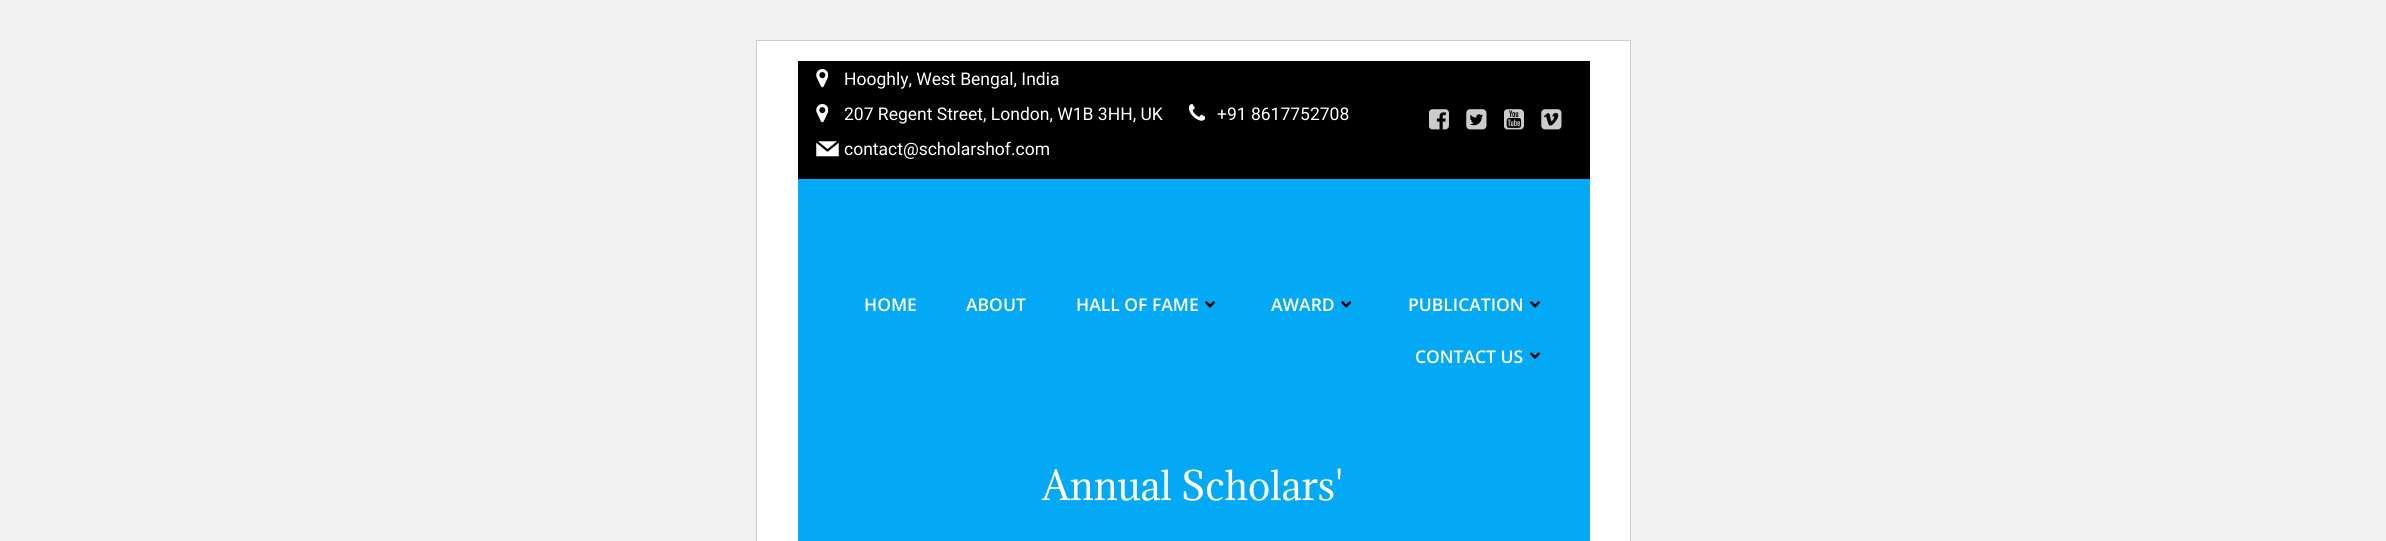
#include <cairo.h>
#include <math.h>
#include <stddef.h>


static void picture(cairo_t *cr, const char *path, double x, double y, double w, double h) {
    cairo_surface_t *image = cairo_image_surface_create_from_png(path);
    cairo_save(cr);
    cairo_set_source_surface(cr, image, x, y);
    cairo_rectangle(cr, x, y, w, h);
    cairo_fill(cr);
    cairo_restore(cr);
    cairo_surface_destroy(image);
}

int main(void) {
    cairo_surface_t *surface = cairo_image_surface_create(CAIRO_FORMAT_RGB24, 2386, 541);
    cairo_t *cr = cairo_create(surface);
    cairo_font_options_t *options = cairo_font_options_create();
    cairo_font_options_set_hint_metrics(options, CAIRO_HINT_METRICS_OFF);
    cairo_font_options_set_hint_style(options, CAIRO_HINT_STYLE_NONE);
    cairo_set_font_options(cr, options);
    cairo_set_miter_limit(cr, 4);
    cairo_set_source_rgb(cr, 0.945, 0.945, 0.945);
    cairo_paint(cr);
    cairo_set_source_rgb(cr, 1, 1, 1);
    cairo_rectangle(cr, 756.5, 40.5, 874, 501);
    cairo_fill_preserve(cr);
    cairo_set_source_rgb(cr, 0.8, 0.816, 0.831);
    cairo_set_line_width(cr, 1);
    cairo_stroke(cr);
    cairo_set_source_rgb(cr, 0, 0, 0);
    cairo_rectangle(cr, 798, 61, 792, 118);
    cairo_fill(cr);
    picture(cr, "img1.png", 816, 69, 12, 19);
    cairo_select_font_face(cr, "Roboto", CAIRO_FONT_SLANT_NORMAL, CAIRO_FONT_WEIGHT_NORMAL);
    cairo_set_font_size(cr, 17.5);
    cairo_set_source_rgb(cr, 1, 1, 1);
    cairo_move_to(cr, 844, 85);
    cairo_show_text(cr, "Hooghly, West Bengal, India");
    picture(cr, "img1.png", 816, 104, 12, 19);
    cairo_move_to(cr, 844, 120);
    cairo_show_text(cr, "207 Regent Street, London, W1B 3HH, UK");
    picture(cr, "img2.png", 1189, 104, 16, 17);
    cairo_move_to(cr, 1217, 120);
    cairo_show_text(cr, "+91 8617752708");
    picture(cr, "img3.png", 816, 141, 23, 16);
    cairo_move_to(cr, 844, 155);
    cairo_show_text(cr, "contact@scholarshof.com");
    picture(cr, "img4.png", 1429, 109, 20, 21);
    picture(cr, "img5.png", 1466, 109, 21, 21);
    picture(cr, "img6.png", 1504, 109, 20, 21);
    picture(cr, "img7.png", 1541, 109, 21, 21);
    cairo_set_source_rgb(cr, 0.012, 0.663, 0.957);
    cairo_rectangle(cr, 798, 179, 792, 362);
    cairo_fill(cr);
    cairo_select_font_face(cr, "Open Sans SemiBold", CAIRO_FONT_SLANT_NORMAL, CAIRO_FONT_WEIGHT_NORMAL);
    cairo_set_source_rgb(cr, 1, 1, 1);
    cairo_move_to(cr, 864, 311);
    cairo_show_text(cr, "HOME");
    cairo_move_to(cr, 966, 311);
    cairo_show_text(cr, "ABOUT");
    cairo_move_to(cr, 1076, 311);
    cairo_show_text(cr, "HALL OF FAME");
    picture(cr, "img8.png", 1205, 301, 10, 7);
    cairo_move_to(cr, 1271, 311);
    cairo_show_text(cr, "AWARD");
    picture(cr, "img9.png", 1341, 301, 11, 7);
    cairo_move_to(cr, 1408, 311);
    cairo_show_text(cr, "PUBLICATION");
    picture(cr, "img8.png", 1530, 301, 10, 7);
    cairo_move_to(cr, 1415, 363);
    cairo_show_text(cr, "CONTACT US");
    picture(cr, "img10.png", 1530, 352, 10, 7);
    cairo_select_font_face(cr, "Adamina", CAIRO_FONT_SLANT_NORMAL, CAIRO_FONT_WEIGHT_NORMAL);
    cairo_set_font_size(cr, 37.5);
    cairo_move_to(cr, 1042, 500);
    cairo_show_text(cr, "Annual Scholars'");
    cairo_surface_write_to_png(surface, "page.png");
    cairo_font_options_destroy(options);
    cairo_destroy(cr);
    cairo_surface_destroy(surface);
    return 0;
}
